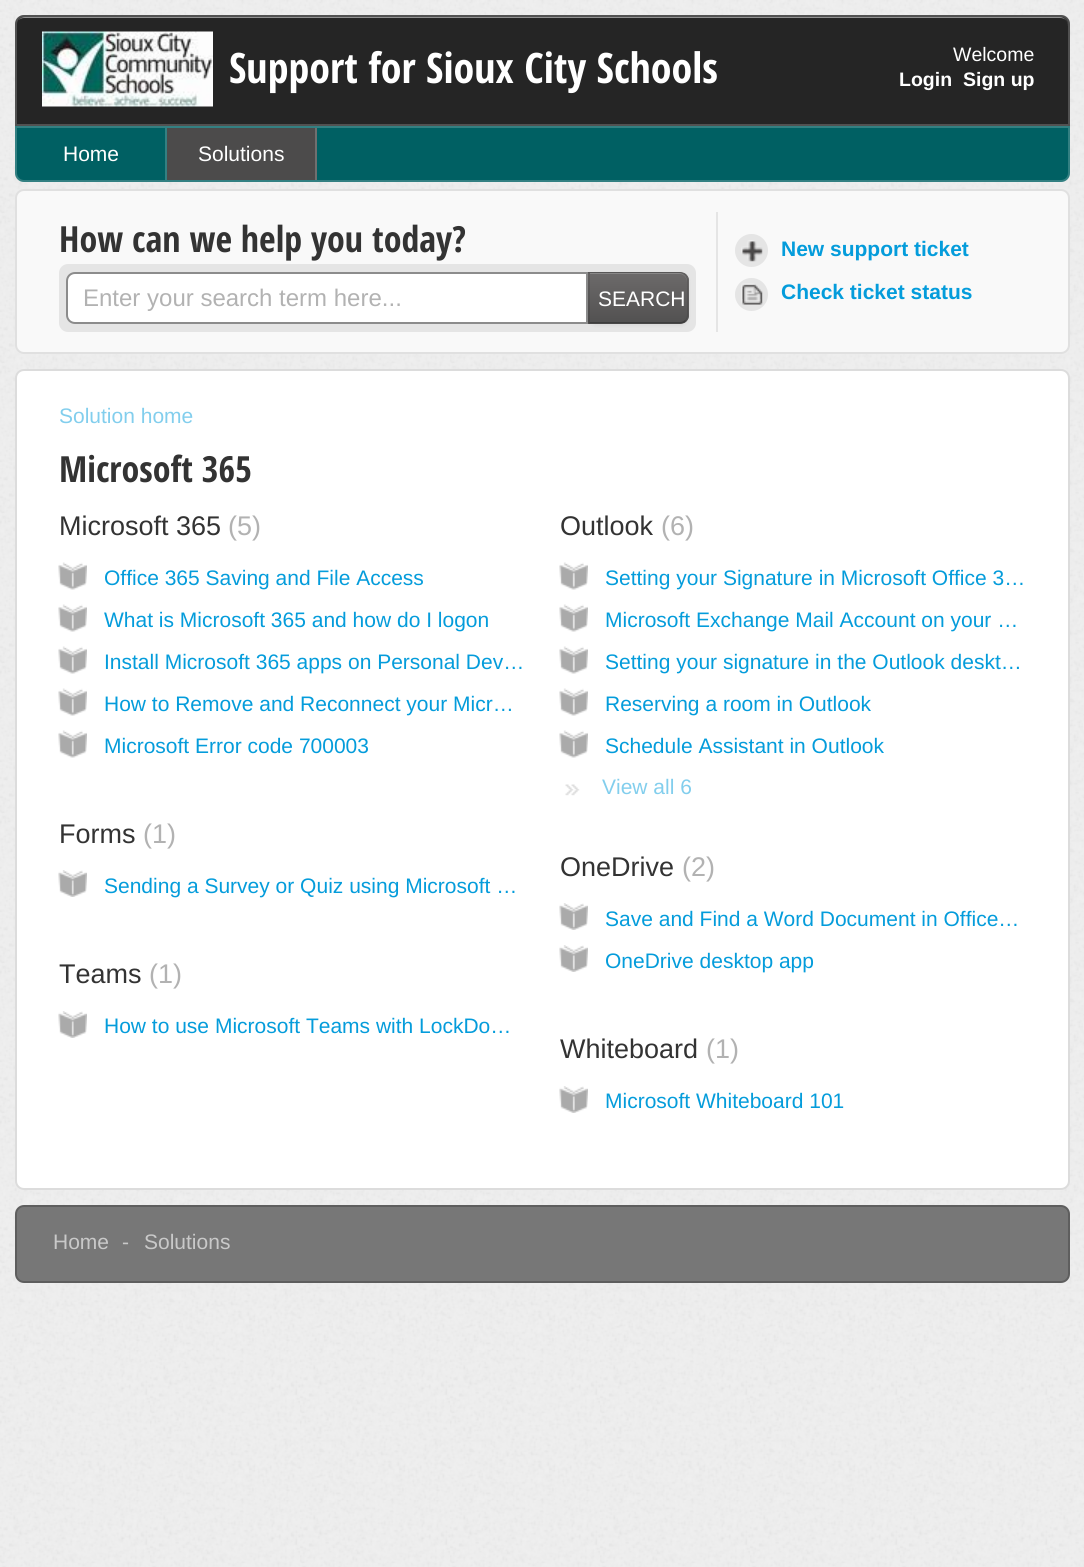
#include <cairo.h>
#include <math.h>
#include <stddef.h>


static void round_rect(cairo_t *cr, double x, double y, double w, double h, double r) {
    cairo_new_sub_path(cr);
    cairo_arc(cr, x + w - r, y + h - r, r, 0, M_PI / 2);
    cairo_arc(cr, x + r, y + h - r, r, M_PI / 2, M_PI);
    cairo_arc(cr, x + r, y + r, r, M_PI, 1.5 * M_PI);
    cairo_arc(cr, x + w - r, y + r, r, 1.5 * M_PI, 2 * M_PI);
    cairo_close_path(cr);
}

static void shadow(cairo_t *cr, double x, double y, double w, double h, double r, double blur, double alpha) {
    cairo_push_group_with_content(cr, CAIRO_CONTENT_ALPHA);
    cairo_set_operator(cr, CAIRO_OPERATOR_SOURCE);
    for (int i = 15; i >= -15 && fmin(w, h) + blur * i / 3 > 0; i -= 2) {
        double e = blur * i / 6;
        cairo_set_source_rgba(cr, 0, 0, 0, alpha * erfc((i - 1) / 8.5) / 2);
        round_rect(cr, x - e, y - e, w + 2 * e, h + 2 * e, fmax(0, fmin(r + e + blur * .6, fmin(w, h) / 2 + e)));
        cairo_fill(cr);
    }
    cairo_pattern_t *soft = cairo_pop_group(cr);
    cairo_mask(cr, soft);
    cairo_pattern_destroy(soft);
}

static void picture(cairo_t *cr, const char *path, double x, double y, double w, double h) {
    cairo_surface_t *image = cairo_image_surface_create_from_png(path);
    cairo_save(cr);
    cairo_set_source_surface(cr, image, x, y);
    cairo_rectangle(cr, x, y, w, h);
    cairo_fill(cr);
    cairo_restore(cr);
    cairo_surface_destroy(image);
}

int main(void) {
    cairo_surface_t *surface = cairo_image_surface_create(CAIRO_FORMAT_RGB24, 1084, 1567);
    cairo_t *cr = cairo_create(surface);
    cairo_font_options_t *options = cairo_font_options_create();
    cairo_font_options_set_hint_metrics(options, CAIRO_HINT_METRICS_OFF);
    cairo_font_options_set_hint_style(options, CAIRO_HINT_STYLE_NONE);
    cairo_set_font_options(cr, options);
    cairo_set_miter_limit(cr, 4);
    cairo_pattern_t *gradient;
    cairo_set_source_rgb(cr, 0.937, 0.937, 0.937);
    cairo_paint(cr);
    picture(cr, "img1.png", 0, 0, 1084, 1567);
    cairo_set_source_rgb(cr, 0.145, 0.145, 0.145);
    cairo_new_path(cr);
    cairo_move_to(cr, 24, 15);
    cairo_line_to(cr, 1061, 15);
    cairo_curve_to(cr, 1066, 15, 1070, 19, 1070, 24);
    cairo_line_to(cr, 1070, 126);
    cairo_line_to(cr, 15, 126);
    cairo_line_to(cr, 15, 24);
    cairo_curve_to(cr, 15, 19, 19, 15, 24, 15);
    cairo_close_path(cr);
    cairo_fill(cr);
    cairo_set_source_rgb(cr, 0.573, 0.573, 0.573);
    cairo_new_path(cr);
    cairo_move_to(cr, 24, 18);
    cairo_line_to(cr, 1060, 18);
    cairo_curve_to(cr, 1065, 18, 1068, 21, 1068, 26);
    cairo_line_to(cr, 1068, 25);
    cairo_curve_to(cr, 1068, 21, 1064, 17, 1060, 17);
    cairo_line_to(cr, 25, 17);
    cairo_curve_to(cr, 23, 17, 20, 18, 19, 20);
    cairo_curve_to(cr, 20, 19, 22, 18, 24, 18);
    cairo_close_path(cr);
    cairo_fill(cr);
    cairo_new_path(cr);
    cairo_move_to(cr, 24, 16);
    cairo_line_to(cr, 1061, 16);
    cairo_curve_to(cr, 1065.5, 16, 1069, 19.5, 1069, 24);
    cairo_line_to(cr, 1069, 125);
    cairo_line_to(cr, 16, 125);
    cairo_line_to(cr, 16, 24);
    cairo_curve_to(cr, 16, 19.5, 19.5, 16, 24, 16);
    cairo_close_path(cr);
    cairo_set_source_rgba(cr, 1, 1, 1, 0.2);
    cairo_stroke(cr);
    picture(cr, "img2.png", 42, 31, 171, 76);
    cairo_select_font_face(cr, "Open Sans Condensed", CAIRO_FONT_SLANT_NORMAL, CAIRO_FONT_WEIGHT_BOLD);
    cairo_set_font_size(cr, 42);
    cairo_set_source_rgb(cr, 1, 1, 1);
    cairo_move_to(cr, 229, 83);
    cairo_show_text(cr, "Support for Sioux City Schools");
    cairo_select_font_face(cr, "Liberation Sans", CAIRO_FONT_SLANT_NORMAL, CAIRO_FONT_WEIGHT_NORMAL);
    cairo_set_font_size(cr, 19.5);
    cairo_move_to(cr, 953, 61);
    cairo_show_text(cr, "Welcome");
    cairo_select_font_face(cr, "Liberation Sans", CAIRO_FONT_SLANT_NORMAL, CAIRO_FONT_WEIGHT_BOLD);
    cairo_move_to(cr, 899, 86);
    cairo_show_text(cr, "Login");
    cairo_move_to(cr, 963, 86);
    cairo_show_text(cr, "Sign up");
    cairo_set_source_rgb(cr, 0, 0.376, 0.388);
    cairo_new_path(cr);
    cairo_move_to(cr, 15, 126);
    cairo_line_to(cr, 1070, 126);
    cairo_line_to(cr, 1070, 173);
    cairo_curve_to(cr, 1070, 178, 1066, 182, 1061, 182);
    cairo_line_to(cr, 24, 182);
    cairo_curve_to(cr, 19, 182, 15, 178, 15, 173);
    cairo_close_path(cr);
    cairo_fill(cr);
    cairo_new_path(cr);
    cairo_move_to(cr, 16, 127);
    cairo_line_to(cr, 1069, 127);
    cairo_line_to(cr, 1069, 173);
    cairo_curve_to(cr, 1069, 177.5, 1065.5, 181, 1061, 181);
    cairo_line_to(cr, 24, 181);
    cairo_curve_to(cr, 19.5, 181, 16, 177.5, 16, 173);
    cairo_close_path(cr);
    cairo_set_source_rgba(cr, 1, 1, 1, 0.2);
    cairo_stroke(cr);
    cairo_set_source_rgb(cr, 0.2, 0.502, 0.51);
    cairo_rectangle(cr, 165, 128, 2, 52);
    cairo_fill(cr);
    cairo_select_font_face(cr, "Liberation Sans", CAIRO_FONT_SLANT_NORMAL, CAIRO_FONT_WEIGHT_NORMAL);
    cairo_set_font_size(cr, 21);
    cairo_set_source_rgb(cr, 1, 1, 1);
    cairo_move_to(cr, 63, 161);
    cairo_show_text(cr, "Home");
    cairo_set_source_rgb(cr, 0.298, 0.294, 0.294);
    cairo_rectangle(cr, 167, 128, 148, 52);
    cairo_fill(cr);
    cairo_set_source_rgb(cr, 0.439, 0.435, 0.435);
    cairo_rectangle(cr, 315, 128, 2, 52);
    cairo_fill(cr);
    cairo_set_source_rgb(cr, 1, 1, 1);
    cairo_move_to(cr, 198, 161);
    cairo_show_text(cr, "Solutions");
    cairo_set_source_rgb(cr, 0.976, 0.976, 0.976);
    round_rect(cr, 16, 190, 1053, 163, 8);
    cairo_fill_preserve(cr);
    cairo_set_source_rgb(cr, 0.878, 0.878, 0.878);
    cairo_stroke(cr);
    cairo_set_source_rgb(cr, 0.898, 0.898, 0.898);
    cairo_rectangle(cr, 716, 212, 2, 120);
    cairo_fill(cr);
    cairo_select_font_face(cr, "Open Sans Condensed", CAIRO_FONT_SLANT_NORMAL, CAIRO_FONT_WEIGHT_BOLD);
    cairo_set_font_size(cr, 36);
    cairo_set_source_rgb(cr, 0.2, 0.2, 0.2);
    cairo_move_to(cr, 59, 252);
    cairo_show_text(cr, "How can we help you today?");
    cairo_set_source_rgb(cr, 0.898, 0.898, 0.898);
    round_rect(cr, 59, 264, 637, 68, 9);
    cairo_fill(cr);
    cairo_set_source_rgb(cr, 1, 1, 1);
    cairo_new_path(cr);
    cairo_move_to(cr, 75, 273);
    cairo_line_to(cr, 587, 273);
    cairo_line_to(cr, 587, 323);
    cairo_line_to(cr, 75, 323);
    cairo_curve_to(cr, 70.5, 323, 67, 319.5, 67, 315);
    cairo_line_to(cr, 67, 281);
    cairo_curve_to(cr, 67, 276.5, 70.5, 273, 75, 273);
    cairo_close_path(cr);
    cairo_fill_preserve(cr);
    cairo_set_source_rgb(cr, 0.549, 0.549, 0.549);
    cairo_stroke(cr);
    cairo_select_font_face(cr, "Liberation Sans", CAIRO_FONT_SLANT_NORMAL, CAIRO_FONT_WEIGHT_NORMAL);
    cairo_set_font_size(cr, 24);
    cairo_set_source_rgb(cr, 0.698, 0.698, 0.698);
    cairo_move_to(cr, 83, 306);
    cairo_show_text(cr, "Enter your search term here...");
    cairo_set_source_rgb(cr, 0, 0, 0);
    shadow(cr, 588, 273, 101, 53, 9, 1.5, 0.05);
    cairo_set_source_rgb(cr, 0.384, 0.376, 0.376);
    cairo_new_path(cr);
    cairo_move_to(cr, 588, 272);
    cairo_line_to(cr, 680, 272);
    cairo_curve_to(cr, 685, 272, 689, 276, 689, 281);
    cairo_line_to(cr, 689, 315);
    cairo_curve_to(cr, 689, 320, 685, 324, 680, 324);
    cairo_line_to(cr, 588, 324);
    cairo_close_path(cr);
    cairo_fill(cr);
    cairo_save(cr);
    cairo_new_path(cr);
    cairo_move_to(cr, 588, 272);
    cairo_line_to(cr, 680, 272);
    cairo_curve_to(cr, 685, 272, 689, 276, 689, 281);
    cairo_line_to(cr, 689, 315);
    cairo_curve_to(cr, 689, 320, 685, 324, 680, 324);
    cairo_line_to(cr, 588, 324);
    cairo_close_path(cr);
    cairo_clip(cr);
    gradient = cairo_pattern_create_linear(638, 273, 638, 323);
    cairo_pattern_add_color_stop_rgba(gradient, 0, 0.424, 0.416, 0.416, 1);
    cairo_pattern_add_color_stop_rgba(gradient, 1, 0.322, 0.318, 0.318, 1);
    cairo_set_source(cr, gradient);
    cairo_pattern_destroy(gradient);
    cairo_rectangle(cr, 588, 273, 101, 50);
    cairo_fill(cr);
    cairo_restore(cr);
    cairo_set_source_rgb(cr, 0.537, 0.533, 0.533);
    cairo_new_path(cr);
    cairo_move_to(cr, 590, 274);
    cairo_line_to(cr, 680, 274);
    cairo_curve_to(cr, 684, 274, 687, 278, 687, 282);
    cairo_line_to(cr, 687, 281);
    cairo_curve_to(cr, 687, 277, 683, 273, 679, 273);
    cairo_line_to(cr, 590, 273);
    cairo_close_path(cr);
    cairo_fill(cr);
    cairo_set_source_rgba(cr, 0, 0, 0, 0.1);
    cairo_new_path(cr);
    cairo_move_to(cr, 590, 273);
    cairo_line_to(cr, 681, 273);
    cairo_line_to(cr, 685, 275);
    cairo_line_to(cr, 686, 274);
    cairo_curve_to(cr, 684, 273, 682, 272, 680, 272);
    cairo_line_to(cr, 588, 272);
    cairo_line_to(cr, 590, 274);
    cairo_close_path(cr);
    cairo_fill(cr);
    cairo_new_path(cr);
    cairo_move_to(cr, 686, 274);
    cairo_curve_to(cr, 687, 276, 688, 278, 688, 280);
    cairo_line_to(cr, 688, 315);
    cairo_curve_to(cr, 688, 317, 687, 320, 686, 321);
    cairo_line_to(cr, 685, 320);
    cairo_curve_to(cr, 686, 319, 687, 317, 687, 315);
    cairo_line_to(cr, 687, 280);
    cairo_curve_to(cr, 687, 278, 686, 276, 685, 275);
    cairo_close_path(cr);
    cairo_fill(cr);
    cairo_set_source_rgba(cr, 0, 0, 0, 0.25);
    cairo_new_path(cr);
    cairo_move_to(cr, 680, 324);
    cairo_curve_to(cr, 682, 324, 684, 323, 686, 321);
    cairo_line_to(cr, 685, 320);
    cairo_curve_to(cr, 684, 321, 682, 322, 680, 322);
    cairo_line_to(cr, 590, 322);
    cairo_line_to(cr, 588, 324);
    cairo_close_path(cr);
    cairo_fill(cr);
    cairo_set_source_rgba(cr, 0, 0, 0, 0.1);
    cairo_new_path(cr);
    cairo_move_to(cr, 588, 324);
    cairo_line_to(cr, 590, 322);
    cairo_line_to(cr, 590, 274);
    cairo_line_to(cr, 588, 272);
    cairo_close_path(cr);
    cairo_fill(cr);
    cairo_set_font_size(cr, 21);
    cairo_set_source_rgb(cr, 1, 1, 1);
    cairo_move_to(cr, 598, 306);
    cairo_show_text(cr, "SEARCH");
    cairo_set_source_rgb(cr, 0.898, 0.898, 0.898);
    cairo_new_path(cr);
    cairo_arc(cr, 751.5, 250.5, 16.5, 0, 2 * M_PI);
    cairo_fill(cr);
    picture(cr, "img3.png", 741, 240, 22, 22);
    cairo_select_font_face(cr, "Liberation Sans", CAIRO_FONT_SLANT_NORMAL, CAIRO_FONT_WEIGHT_BOLD);
    cairo_set_source_rgb(cr, 0.016, 0.612, 0.859);
    cairo_move_to(cr, 781, 256);
    cairo_show_text(cr, "New support ticket");
    cairo_set_source_rgb(cr, 0.898, 0.898, 0.898);
    cairo_new_path(cr);
    cairo_arc(cr, 751.5, 294.5, 16.5, 0, 2 * M_PI);
    cairo_fill(cr);
    picture(cr, "img4.png", 741, 283, 22, 22);
    cairo_set_source_rgb(cr, 0.016, 0.612, 0.859);
    cairo_move_to(cr, 781, 299);
    cairo_show_text(cr, "Check ticket status");
    cairo_set_source_rgb(cr, 1, 1, 1);
    round_rect(cr, 16, 370, 1053, 819, 8);
    cairo_fill_preserve(cr);
    cairo_set_source_rgb(cr, 0.863, 0.863, 0.863);
    cairo_stroke(cr);
    cairo_select_font_face(cr, "Liberation Sans", CAIRO_FONT_SLANT_NORMAL, CAIRO_FONT_WEIGHT_NORMAL);
    cairo_set_source_rgb(cr, 0.51, 0.808, 0.929);
    cairo_move_to(cr, 59, 423);
    cairo_show_text(cr, "Solution home");
    cairo_select_font_face(cr, "Open Sans Condensed", CAIRO_FONT_SLANT_NORMAL, CAIRO_FONT_WEIGHT_BOLD);
    cairo_set_font_size(cr, 36);
    cairo_set_source_rgb(cr, 0.2, 0.2, 0.2);
    cairo_move_to(cr, 59, 482);
    cairo_show_text(cr, "Microsoft 365");
    cairo_select_font_face(cr, "Liberation Sans", CAIRO_FONT_SLANT_NORMAL, CAIRO_FONT_WEIGHT_NORMAL);
    cairo_set_font_size(cr, 27);
    cairo_move_to(cr, 59, 535);
    cairo_show_text(cr, "Microsoft 365");
    cairo_set_source_rgb(cr, 0.698, 0.698, 0.698);
    cairo_move_to(cr, 228, 535);
    cairo_show_text(cr, "(5)");
    picture(cr, "img5.png", 58, 562, 29, 28);
    cairo_set_font_size(cr, 21);
    cairo_set_source_rgb(cr, 0.016, 0.612, 0.859);
    cairo_move_to(cr, 104, 585);
    cairo_show_text(cr, "Office 365 Saving and File Access");
    picture(cr, "img5.png", 58, 604, 29, 28);
    cairo_move_to(cr, 104, 627);
    cairo_show_text(cr, "What is Microsoft 365 and how do I logon");
    picture(cr, "img5.png", 58, 646, 29, 28);
    cairo_move_to(cr, 104, 669);
    cairo_show_text(cr, "Install Microsoft 365 apps on Personal Dev…");
    picture(cr, "img5.png", 58, 688, 29, 28);
    cairo_move_to(cr, 104, 711);
    cairo_show_text(cr, "How to Remove and Reconnect your Micr…");
    picture(cr, "img5.png", 58, 730, 29, 28);
    cairo_move_to(cr, 104, 753);
    cairo_show_text(cr, "Microsoft Error code 700003");
    cairo_set_font_size(cr, 27);
    cairo_set_source_rgb(cr, 0.2, 0.2, 0.2);
    cairo_move_to(cr, 560, 535);
    cairo_show_text(cr, "Outlook");
    cairo_set_source_rgb(cr, 0.698, 0.698, 0.698);
    cairo_move_to(cr, 661, 535);
    cairo_show_text(cr, "(6)");
    picture(cr, "img6.png", 559, 562, 29, 28);
    cairo_set_font_size(cr, 21);
    cairo_set_source_rgb(cr, 0.016, 0.612, 0.859);
    cairo_move_to(cr, 605, 585);
    cairo_show_text(cr, "Setting your Signature in Microsoft Office 3…");
    picture(cr, "img6.png", 559, 604, 29, 28);
    cairo_move_to(cr, 605, 627);
    cairo_show_text(cr, "Microsoft Exchange Mail Account on your …");
    picture(cr, "img6.png", 559, 646, 29, 28);
    cairo_move_to(cr, 605, 669);
    cairo_show_text(cr, "Setting your signature in the Outlook deskt…");
    picture(cr, "img6.png", 559, 688, 29, 28);
    cairo_move_to(cr, 605, 711);
    cairo_show_text(cr, "Reserving a room in Outlook");
    picture(cr, "img6.png", 559, 730, 29, 28);
    cairo_move_to(cr, 605, 753);
    cairo_show_text(cr, "Schedule Assistant in Outlook");
    picture(cr, "img7.png", 565, 784, 15, 12);
    cairo_set_source_rgb(cr, 0.51, 0.808, 0.929);
    cairo_move_to(cr, 602, 794);
    cairo_show_text(cr, "View all 6");
    cairo_set_font_size(cr, 27);
    cairo_set_source_rgb(cr, 0.2, 0.2, 0.2);
    cairo_move_to(cr, 59, 843);
    cairo_show_text(cr, "Forms");
    cairo_set_source_rgb(cr, 0.698, 0.698, 0.698);
    cairo_move_to(cr, 143, 843);
    cairo_show_text(cr, "(1)");
    picture(cr, "img8.png", 58, 870, 29, 27);
    cairo_set_font_size(cr, 21);
    cairo_set_source_rgb(cr, 0.016, 0.612, 0.859);
    cairo_move_to(cr, 104, 893);
    cairo_show_text(cr, "Sending a Survey or Quiz using Microsoft …");
    cairo_set_font_size(cr, 27);
    cairo_set_source_rgb(cr, 0.2, 0.2, 0.2);
    cairo_move_to(cr, 560, 876);
    cairo_show_text(cr, "OneDrive");
    cairo_set_source_rgb(cr, 0.698, 0.698, 0.698);
    cairo_move_to(cr, 682, 876);
    cairo_show_text(cr, "(2)");
    picture(cr, "img9.png", 559, 903, 29, 27);
    cairo_set_font_size(cr, 21);
    cairo_set_source_rgb(cr, 0.016, 0.612, 0.859);
    cairo_move_to(cr, 605, 926);
    cairo_show_text(cr, "Save and Find a Word Document in Office…");
    picture(cr, "img9.png", 559, 945, 29, 27);
    cairo_move_to(cr, 605, 968);
    cairo_show_text(cr, "OneDrive desktop app");
    cairo_set_font_size(cr, 27);
    cairo_set_source_rgb(cr, 0.2, 0.2, 0.2);
    cairo_move_to(cr, 59, 983);
    cairo_show_text(cr, "Teams");
    cairo_set_source_rgb(cr, 0.698, 0.698, 0.698);
    cairo_move_to(cr, 149, 983);
    cairo_show_text(cr, "(1)");
    picture(cr, "img8.png", 58, 1011, 29, 27);
    cairo_set_font_size(cr, 21);
    cairo_set_source_rgb(cr, 0.016, 0.612, 0.859);
    cairo_move_to(cr, 104, 1033);
    cairo_show_text(cr, "How to use Microsoft Teams with LockDo…");
    cairo_set_font_size(cr, 27);
    cairo_set_source_rgb(cr, 0.2, 0.2, 0.2);
    cairo_move_to(cr, 560, 1058);
    cairo_show_text(cr, "Whiteboard");
    cairo_set_source_rgb(cr, 0.698, 0.698, 0.698);
    cairo_move_to(cr, 706, 1058);
    cairo_show_text(cr, "(1)");
    picture(cr, "img9.png", 559, 1086, 29, 27);
    cairo_set_font_size(cr, 21);
    cairo_set_source_rgb(cr, 0.016, 0.612, 0.859);
    cairo_move_to(cr, 605, 1108);
    cairo_show_text(cr, "Microsoft Whiteboard 101");
    cairo_set_source_rgb(cr, 0.467, 0.467, 0.467);
    round_rect(cr, 16, 1206, 1053, 76, 8);
    cairo_fill_preserve(cr);
    cairo_set_source_rgb(cr, 0.369, 0.369, 0.369);
    cairo_stroke(cr);
    cairo_set_source_rgb(cr, 0.788, 0.788, 0.788);
    cairo_move_to(cr, 53, 1249);
    cairo_show_text(cr, "Home");
    cairo_move_to(cr, 122, 1249);
    cairo_show_text(cr, "-");
    cairo_move_to(cr, 144, 1249);
    cairo_show_text(cr, "Solutions");
    cairo_surface_write_to_png(surface, "page.png");
    cairo_font_options_destroy(options);
    cairo_destroy(cr);
    cairo_surface_destroy(surface);
    return 0;
}
